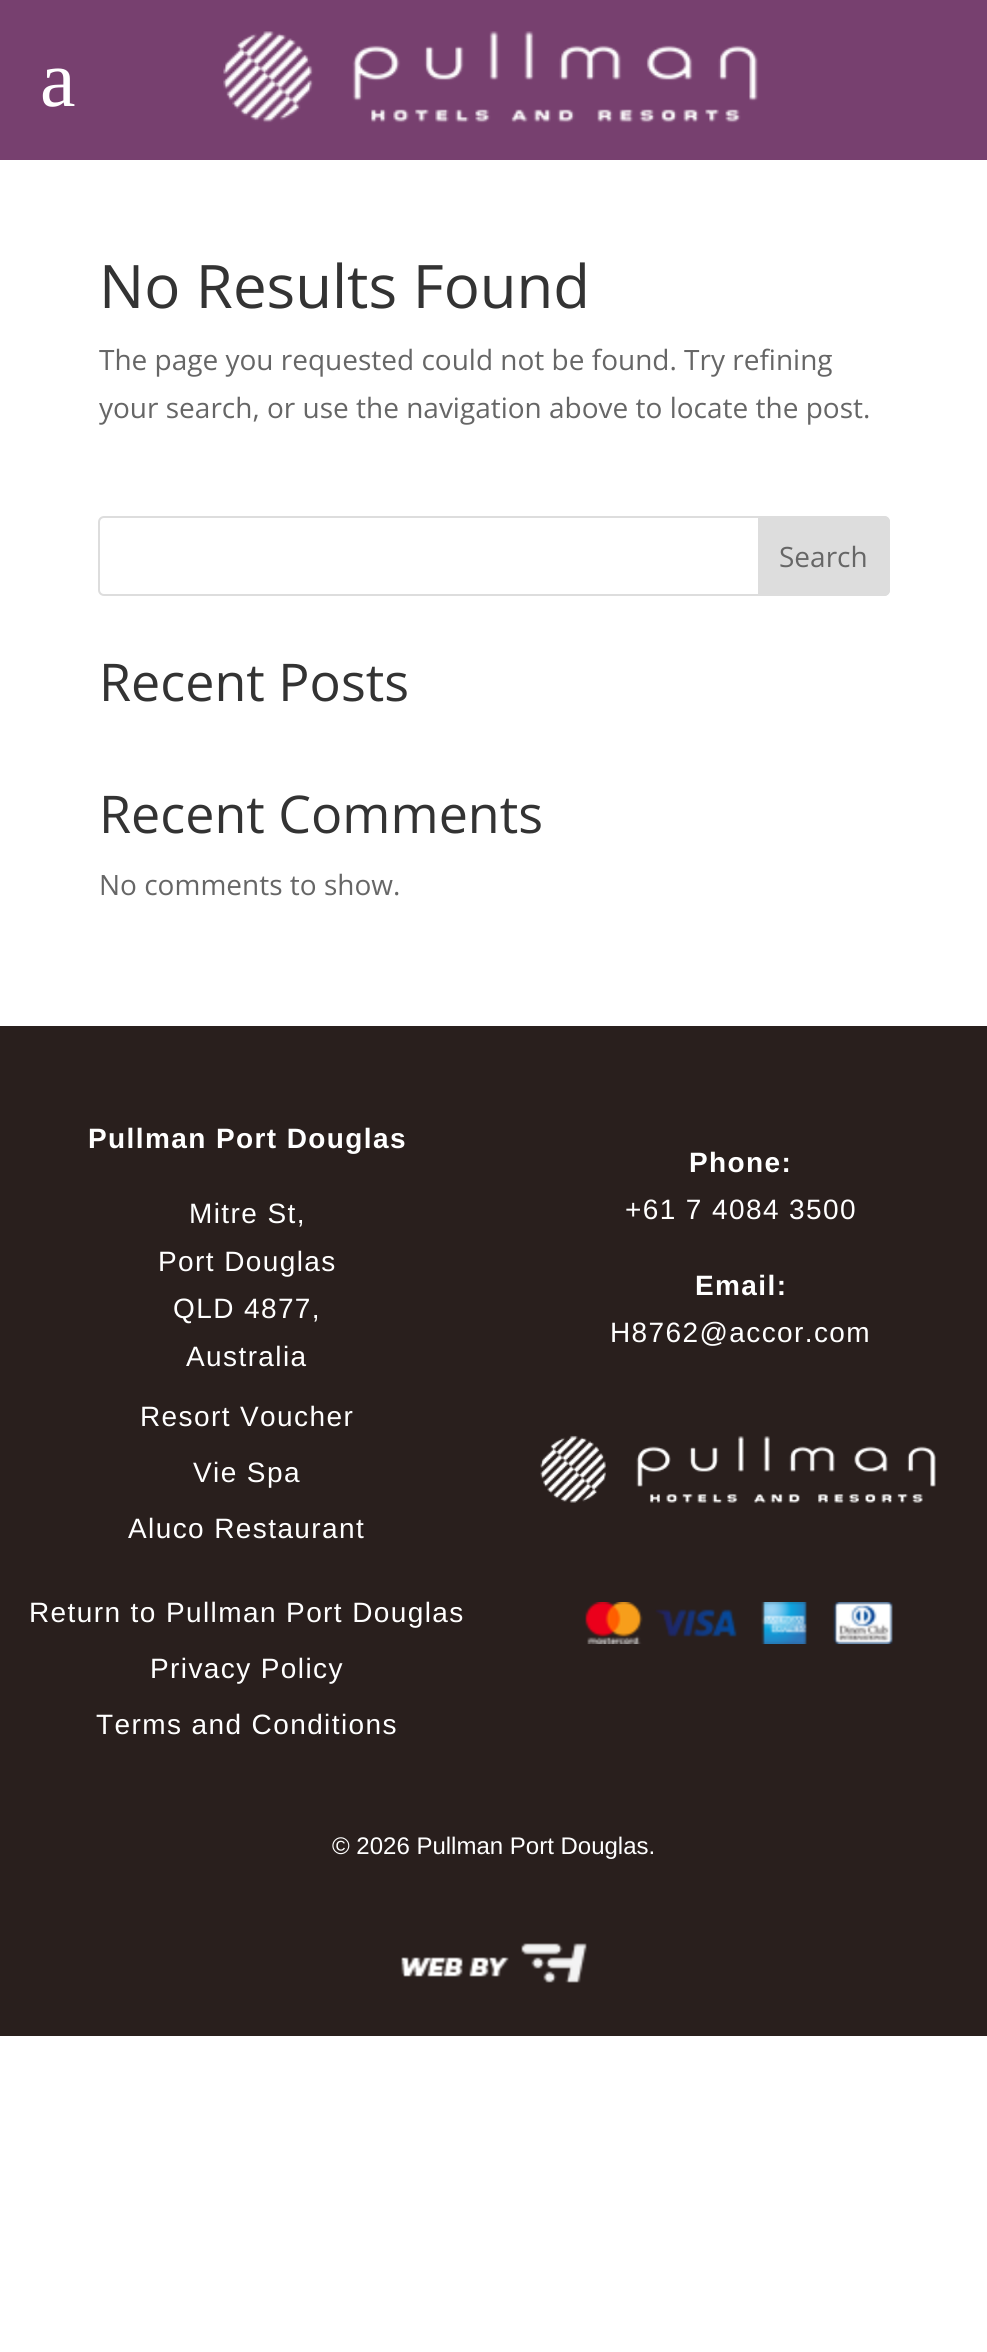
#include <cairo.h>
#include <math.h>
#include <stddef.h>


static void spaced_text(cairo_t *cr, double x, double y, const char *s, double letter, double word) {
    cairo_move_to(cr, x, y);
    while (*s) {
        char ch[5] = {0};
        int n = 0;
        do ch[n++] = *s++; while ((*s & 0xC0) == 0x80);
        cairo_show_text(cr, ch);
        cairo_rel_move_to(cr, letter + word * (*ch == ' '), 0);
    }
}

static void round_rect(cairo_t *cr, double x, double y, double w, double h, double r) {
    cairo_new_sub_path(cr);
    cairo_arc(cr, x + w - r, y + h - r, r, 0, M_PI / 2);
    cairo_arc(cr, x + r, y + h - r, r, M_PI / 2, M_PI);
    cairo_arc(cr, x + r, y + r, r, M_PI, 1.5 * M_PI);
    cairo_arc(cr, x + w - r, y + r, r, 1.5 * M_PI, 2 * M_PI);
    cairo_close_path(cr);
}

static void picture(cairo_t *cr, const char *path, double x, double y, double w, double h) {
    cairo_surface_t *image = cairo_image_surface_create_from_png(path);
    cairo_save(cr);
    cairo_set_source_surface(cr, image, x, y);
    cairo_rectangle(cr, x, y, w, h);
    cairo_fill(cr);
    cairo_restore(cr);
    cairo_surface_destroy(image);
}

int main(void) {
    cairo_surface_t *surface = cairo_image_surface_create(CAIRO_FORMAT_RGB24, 987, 2352);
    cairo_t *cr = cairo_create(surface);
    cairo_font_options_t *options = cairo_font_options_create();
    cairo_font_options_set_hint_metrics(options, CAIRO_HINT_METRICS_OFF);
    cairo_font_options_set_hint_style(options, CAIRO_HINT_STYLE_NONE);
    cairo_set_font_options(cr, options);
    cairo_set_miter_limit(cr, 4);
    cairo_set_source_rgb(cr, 1, 1, 1);
    cairo_paint(cr);
    cairo_set_source_rgb(cr, 0.467, 0.251, 0.435);
    cairo_rectangle(cr, 0, 0, 987, 160);
    cairo_fill(cr);
    cairo_select_font_face(cr, "Liberation Serif", CAIRO_FONT_SLANT_NORMAL, CAIRO_FONT_WEIGHT_NORMAL);
    cairo_set_font_size(cr, 80);
    cairo_set_source_rgb(cr, 1, 1, 1);
    cairo_move_to(cr, 40, 106);
    cairo_show_text(cr, "a");
    picture(cr, "img1.png", 223, 31, 536, 92);
    cairo_select_font_face(cr, "Open Sans", CAIRO_FONT_SLANT_NORMAL, CAIRO_FONT_WEIGHT_NORMAL);
    cairo_set_font_size(cr, 60);
    cairo_set_source_rgb(cr, 0.2, 0.2, 0.2);
    cairo_move_to(cr, 99, 308);
    cairo_show_text(cr, "No Results Found");
    cairo_set_font_size(cr, 28);
    cairo_set_source_rgb(cr, 0.4, 0.4, 0.4);
    cairo_move_to(cr, 99, 370);
    cairo_show_text(cr, "The page you requested could not be found. Try refining");
    cairo_move_to(cr, 99, 418);
    cairo_show_text(cr, "your search, or use the navigation above to locate the post.");
    round_rect(cr, 99, 517, 790, 78, 5);
    cairo_set_source_rgb(cr, 0.867, 0.867, 0.867);
    cairo_stroke(cr);
    cairo_new_path(cr);
    cairo_move_to(cr, 759, 517);
    cairo_line_to(cr, 884, 517);
    cairo_curve_to(cr, 887, 517, 889, 519, 889, 522);
    cairo_line_to(cr, 889, 590);
    cairo_curve_to(cr, 889, 593, 887, 595, 884, 595);
    cairo_line_to(cr, 759, 595);
    cairo_close_path(cr);
    cairo_fill_preserve(cr);
    cairo_stroke(cr);
    cairo_set_source_rgb(cr, 0.4, 0.4, 0.4);
    cairo_move_to(cr, 779, 567);
    cairo_show_text(cr, "Search");
    cairo_set_font_size(cr, 52);
    cairo_set_source_rgb(cr, 0.2, 0.2, 0.2);
    cairo_move_to(cr, 99, 701);
    cairo_show_text(cr, "Recent Posts");
    cairo_move_to(cr, 99, 833);
    cairo_show_text(cr, "Recent Comments");
    cairo_set_font_size(cr, 28);
    cairo_set_source_rgb(cr, 0.4, 0.4, 0.4);
    cairo_move_to(cr, 99, 895);
    cairo_show_text(cr, "No comments to show.");
    cairo_set_source_rgb(cr, 0.161, 0.122, 0.114);
    cairo_rectangle(cr, 0, 1026, 987, 1010);
    cairo_fill(cr);
    cairo_select_font_face(cr, "Liberation Sans", CAIRO_FONT_SLANT_NORMAL, CAIRO_FONT_WEIGHT_BOLD);
    cairo_set_source_rgb(cr, 1, 1, 1);
    spaced_text(cr, 88, 1148, "Pullman Port Douglas", 1.4, 0);
    cairo_select_font_face(cr, "Liberation Sans", CAIRO_FONT_SLANT_NORMAL, CAIRO_FONT_WEIGHT_NORMAL);
    spaced_text(cr, 189, 1223, "Mitre St,", 1.4, 0);
    spaced_text(cr, 158, 1271, "Port Douglas", 1.4, 0);
    spaced_text(cr, 173, 1318, "QLD 4877,", 1.4, 0);
    spaced_text(cr, 186, 1366, "Australia", 1.4, 0);
    cairo_select_font_face(cr, "Liberation Sans", CAIRO_FONT_SLANT_NORMAL, CAIRO_FONT_WEIGHT_BOLD);
    spaced_text(cr, 689, 1172, "Phone:", 1.4, 0);
    cairo_select_font_face(cr, "Liberation Sans", CAIRO_FONT_SLANT_NORMAL, CAIRO_FONT_WEIGHT_NORMAL);
    spaced_text(cr, 625, 1219, "+61 7 4084 3500", 1.4, 0);
    cairo_select_font_face(cr, "Liberation Sans", CAIRO_FONT_SLANT_NORMAL, CAIRO_FONT_WEIGHT_BOLD);
    spaced_text(cr, 695, 1295, "Email:", 1.4, 0);
    cairo_select_font_face(cr, "Liberation Sans", CAIRO_FONT_SLANT_NORMAL, CAIRO_FONT_WEIGHT_NORMAL);
    spaced_text(cr, 610, 1342, "H8762@accor.com", 1.4, 0);
    spaced_text(cr, 140, 1426, "Resort Voucher", 1.4, 0);
    spaced_text(cr, 193, 1482, "Vie Spa", 1.4, 0);
    spaced_text(cr, 128, 1538, "Aluco Restaurant", 1.4, 0);
    spaced_text(cr, 29, 1622, "Return to Pullman Port Douglas", 1.4, 0);
    spaced_text(cr, 150, 1678, "Privacy Policy", 1.4, 0);
    spaced_text(cr, 96, 1734, "Terms and Conditions", 1.4, 0);
    picture(cr, "img2.png", 540, 1435, 396, 68);
    picture(cr, "img3.png", 585, 1602, 308, 42);
    cairo_set_font_size(cr, 24);
    cairo_move_to(cr, 332, 1854);
    cairo_show_text(cr, "© 2026 Pullman Port Douglas.");
    picture(cr, "img4.png", 401, 1943, 186, 40);
    cairo_surface_write_to_png(surface, "page.png");
    cairo_font_options_destroy(options);
    cairo_destroy(cr);
    cairo_surface_destroy(surface);
    return 0;
}
